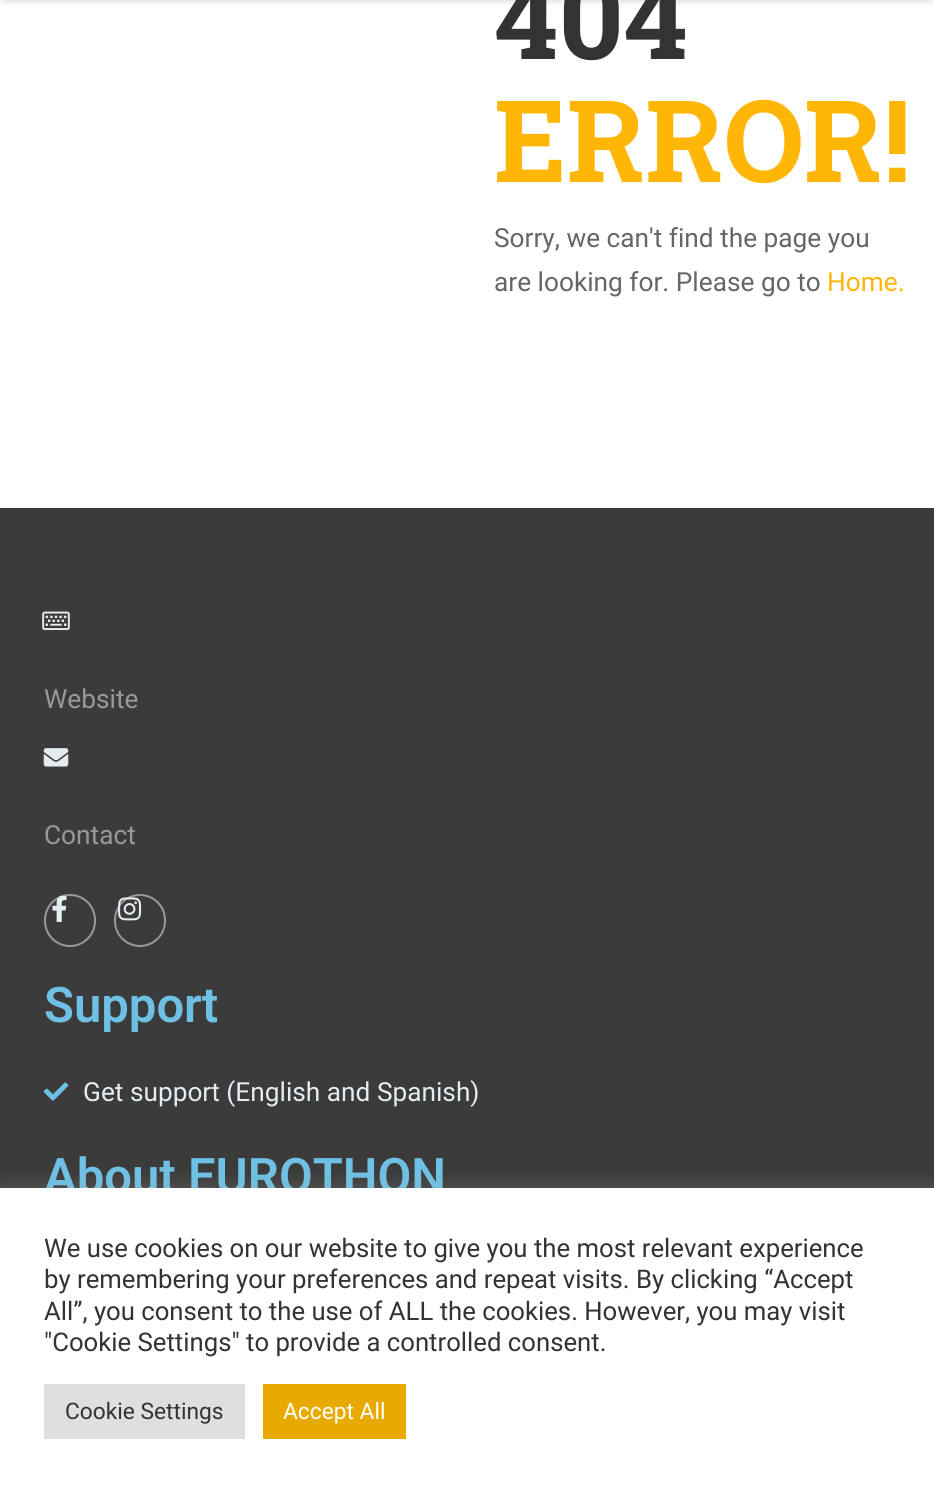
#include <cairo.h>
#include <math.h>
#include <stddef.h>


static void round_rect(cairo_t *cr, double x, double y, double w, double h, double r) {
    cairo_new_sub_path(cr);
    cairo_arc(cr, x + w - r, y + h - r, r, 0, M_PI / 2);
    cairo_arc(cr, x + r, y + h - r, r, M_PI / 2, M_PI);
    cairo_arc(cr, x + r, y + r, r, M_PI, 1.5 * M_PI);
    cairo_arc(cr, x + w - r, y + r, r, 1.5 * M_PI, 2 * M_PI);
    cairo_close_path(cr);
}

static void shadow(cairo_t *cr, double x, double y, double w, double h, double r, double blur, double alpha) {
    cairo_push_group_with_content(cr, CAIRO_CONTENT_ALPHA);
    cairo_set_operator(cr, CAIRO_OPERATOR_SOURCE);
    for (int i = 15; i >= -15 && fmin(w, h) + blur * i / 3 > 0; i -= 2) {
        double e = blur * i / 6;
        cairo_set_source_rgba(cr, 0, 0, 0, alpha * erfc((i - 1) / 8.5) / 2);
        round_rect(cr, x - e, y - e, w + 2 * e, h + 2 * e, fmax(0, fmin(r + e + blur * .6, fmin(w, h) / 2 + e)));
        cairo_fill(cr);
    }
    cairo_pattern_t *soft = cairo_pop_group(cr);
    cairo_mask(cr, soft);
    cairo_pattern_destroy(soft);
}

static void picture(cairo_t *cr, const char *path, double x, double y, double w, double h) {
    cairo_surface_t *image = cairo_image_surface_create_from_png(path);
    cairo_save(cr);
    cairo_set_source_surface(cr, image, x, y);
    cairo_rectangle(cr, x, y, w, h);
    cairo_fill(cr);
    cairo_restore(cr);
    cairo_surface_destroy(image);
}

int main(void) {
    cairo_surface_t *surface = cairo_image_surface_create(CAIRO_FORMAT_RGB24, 934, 1491);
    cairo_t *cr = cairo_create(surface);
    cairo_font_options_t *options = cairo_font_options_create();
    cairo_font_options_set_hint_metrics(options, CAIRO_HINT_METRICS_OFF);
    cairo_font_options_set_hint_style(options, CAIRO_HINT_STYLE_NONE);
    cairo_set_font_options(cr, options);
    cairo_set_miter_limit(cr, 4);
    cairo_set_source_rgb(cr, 1, 1, 1);
    cairo_paint(cr);
    cairo_set_source_rgb(cr, 0.165, 0.165, 0.165);
    shadow(cr, 4, -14, 927, 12, 0, 4.5, 0.4);
    cairo_select_font_face(cr, "Roboto Slab", CAIRO_FONT_SLANT_NORMAL, CAIRO_FONT_WEIGHT_BOLD);
    cairo_set_font_size(cr, 114);
    cairo_set_source_rgb(cr, 0.2, 0.2, 0.2);
    cairo_move_to(cr, 494, 59);
    cairo_show_text(cr, "404");
    cairo_set_source_rgb(cr, 1, 0.714, 0.024);
    cairo_move_to(cr, 494, 182);
    cairo_show_text(cr, "ERROR!");
    cairo_select_font_face(cr, "Roboto", CAIRO_FONT_SLANT_NORMAL, CAIRO_FONT_WEIGHT_NORMAL);
    cairo_set_font_size(cr, 26.25);
    cairo_set_source_rgb(cr, 0.4, 0.4, 0.4);
    cairo_move_to(cr, 494, 247);
    cairo_show_text(cr, "Sorry, we can't find the page you");
    cairo_move_to(cr, 494, 291);
    cairo_show_text(cr, "are looking for. Please go to");
    cairo_set_source_rgb(cr, 1, 0.714, 0.024);
    cairo_move_to(cr, 827, 291);
    cairo_show_text(cr, "Home.");
    cairo_set_source_rgb(cr, 0.231, 0.231, 0.231);
    cairo_rectangle(cr, 0, 508, 934, 680);
    cairo_fill(cr);
    picture(cr, "img1.png", 42, 611, 28, 19);
    cairo_set_source_rgb(cr, 0.6, 0.6, 0.6);
    cairo_move_to(cr, 44, 708);
    cairo_show_text(cr, "Website");
    picture(cr, "img2.png", 43, 748, 26, 19);
    cairo_move_to(cr, 44, 844);
    cairo_show_text(cr, "Contact");
    round_rect(cr, 45, 895, 50, 51, 25);
    cairo_stroke(cr);
    picture(cr, "img3.png", 52, 895, 15, 27);
    round_rect(cr, 115, 895, 50, 51, 25);
    cairo_stroke(cr);
    picture(cr, "img4.png", 118, 897, 24, 24);
    cairo_select_font_face(cr, "Roboto SemiBold", CAIRO_FONT_SLANT_NORMAL, CAIRO_FONT_WEIGHT_NORMAL);
    cairo_set_font_size(cr, 49);
    cairo_set_source_rgb(cr, 0.431, 0.757, 0.894);
    cairo_move_to(cr, 44, 1022);
    cairo_show_text(cr, "Support");
    picture(cr, "img5.png", 43, 1082, 26, 19);
    cairo_select_font_face(cr, "Roboto", CAIRO_FONT_SLANT_NORMAL, CAIRO_FONT_WEIGHT_NORMAL);
    cairo_set_font_size(cr, 26.25);
    cairo_set_source_rgb(cr, 0.894, 0.929, 0.949);
    cairo_move_to(cr, 83, 1101);
    cairo_show_text(cr, "Get support (English and Spanish)");
    cairo_select_font_face(cr, "Roboto SemiBold", CAIRO_FONT_SLANT_NORMAL, CAIRO_FONT_WEIGHT_NORMAL);
    cairo_set_font_size(cr, 49);
    cairo_set_source_rgb(cr, 0.431, 0.757, 0.894);
    cairo_move_to(cr, 44, 1193);
    cairo_show_text(cr, "About EUROTHON");
    cairo_set_source_rgb(cr, 0.675, 0.671, 0.671);
    shadow(cr, 0, 1187, 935, 302, 0, 9, 0.3);
    cairo_set_source_rgb(cr, 1, 1, 1);
    cairo_rectangle(cr, 0, 1188, 934, 303);
    cairo_fill(cr);
    cairo_select_font_face(cr, "Roboto", CAIRO_FONT_SLANT_NORMAL, CAIRO_FONT_WEIGHT_NORMAL);
    cairo_set_font_size(cr, 25.7);
    cairo_set_source_rgb(cr, 0.2, 0.2, 0.2);
    cairo_move_to(cr, 44, 1257);
    cairo_show_text(cr, "We use cookies on our website to give you the most relevant experience");
    cairo_move_to(cr, 44, 1288);
    cairo_show_text(cr, "by remembering your preferences and repeat visits. By clicking “Accept");
    cairo_move_to(cr, 44, 1320);
    cairo_show_text(cr, "All”, you consent to the use of ALL the cookies. However, you may visit");
    cairo_move_to(cr, 44, 1351);
    cairo_show_text(cr, "\"Cookie Settings\" to provide a controlled consent.");
    cairo_set_source_rgb(cr, 0.871, 0.875, 0.878);
    cairo_rectangle(cr, 44, 1384, 201, 55);
    cairo_fill(cr);
    cairo_set_font_size(cr, 22.75);
    cairo_set_source_rgb(cr, 0.2, 0.2, 0.2);
    cairo_move_to(cr, 65, 1419);
    cairo_show_text(cr, "Cookie Settings");
    cairo_set_source_rgb(cr, 0.91, 0.667, 0);
    cairo_rectangle(cr, 263, 1384, 143, 55);
    cairo_fill(cr);
    cairo_set_source_rgb(cr, 1, 1, 1);
    cairo_move_to(cr, 283, 1419);
    cairo_show_text(cr, "Accept All");
    cairo_surface_write_to_png(surface, "page.png");
    cairo_font_options_destroy(options);
    cairo_destroy(cr);
    cairo_surface_destroy(surface);
    return 0;
}
